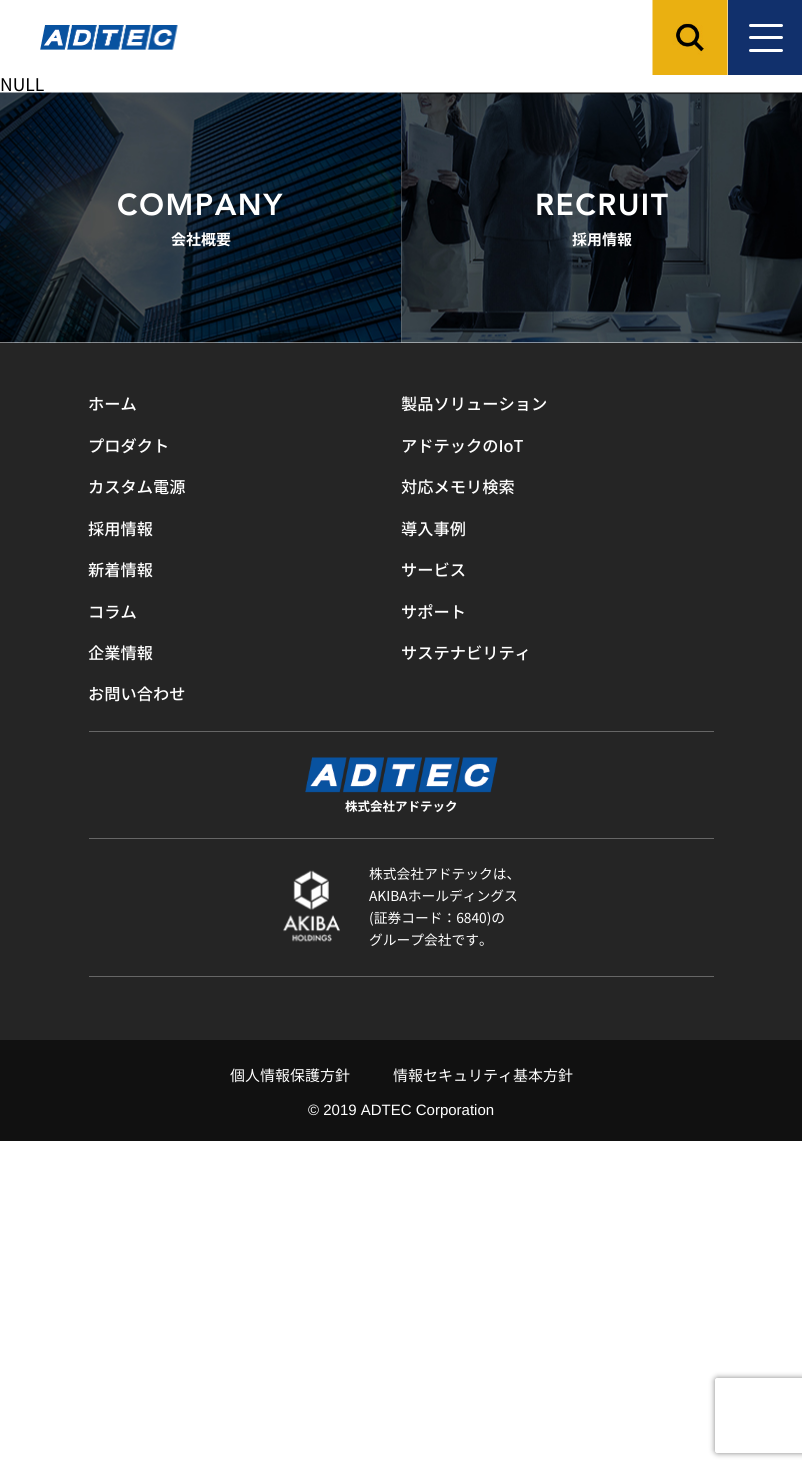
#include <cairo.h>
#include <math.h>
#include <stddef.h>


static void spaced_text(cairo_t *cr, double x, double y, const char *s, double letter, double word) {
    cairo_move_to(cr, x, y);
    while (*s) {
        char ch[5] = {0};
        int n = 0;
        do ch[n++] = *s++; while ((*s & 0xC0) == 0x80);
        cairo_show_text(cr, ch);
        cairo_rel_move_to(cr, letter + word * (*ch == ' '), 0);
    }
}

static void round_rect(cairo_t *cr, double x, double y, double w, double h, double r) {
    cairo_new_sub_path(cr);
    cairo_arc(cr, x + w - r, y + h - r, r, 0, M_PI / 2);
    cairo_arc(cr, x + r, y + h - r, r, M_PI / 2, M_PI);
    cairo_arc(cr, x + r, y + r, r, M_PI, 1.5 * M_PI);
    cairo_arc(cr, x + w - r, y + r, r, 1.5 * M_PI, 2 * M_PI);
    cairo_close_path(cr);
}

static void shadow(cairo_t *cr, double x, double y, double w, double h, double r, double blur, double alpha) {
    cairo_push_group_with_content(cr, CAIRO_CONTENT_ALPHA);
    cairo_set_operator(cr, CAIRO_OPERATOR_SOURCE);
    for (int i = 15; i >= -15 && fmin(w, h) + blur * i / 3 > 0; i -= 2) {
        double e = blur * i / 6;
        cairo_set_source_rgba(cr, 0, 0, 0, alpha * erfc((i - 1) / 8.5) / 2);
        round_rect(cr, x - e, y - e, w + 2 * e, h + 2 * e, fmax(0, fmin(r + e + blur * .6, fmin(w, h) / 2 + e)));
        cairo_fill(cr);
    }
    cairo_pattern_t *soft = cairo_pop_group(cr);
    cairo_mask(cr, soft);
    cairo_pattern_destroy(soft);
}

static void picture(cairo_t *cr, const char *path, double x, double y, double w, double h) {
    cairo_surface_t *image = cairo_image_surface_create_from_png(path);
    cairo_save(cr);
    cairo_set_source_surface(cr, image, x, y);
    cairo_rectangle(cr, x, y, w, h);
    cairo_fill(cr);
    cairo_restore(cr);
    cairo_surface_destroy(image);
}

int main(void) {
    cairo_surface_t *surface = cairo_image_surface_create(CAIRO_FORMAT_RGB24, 802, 1469);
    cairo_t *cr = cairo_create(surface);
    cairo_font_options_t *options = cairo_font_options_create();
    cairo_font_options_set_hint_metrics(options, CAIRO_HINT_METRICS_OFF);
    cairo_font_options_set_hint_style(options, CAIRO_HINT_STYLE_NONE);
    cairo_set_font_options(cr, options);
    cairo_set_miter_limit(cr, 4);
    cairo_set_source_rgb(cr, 1, 1, 1);
    cairo_paint(cr);
    picture(cr, "img1.png", 40, 25, 138, 25);
    picture(cr, "img2.png", 652, 0, 76, 75);
    cairo_set_source_rgb(cr, 0.067, 0.188, 0.424);
    cairo_rectangle(cr, 728, 0, 74, 75);
    cairo_fill(cr);
    cairo_set_source_rgb(cr, 1, 1, 1);
    round_rect(cr, 749, 24, 34, 3, 1.5);
    cairo_fill(cr);
    round_rect(cr, 749, 36, 34, 3, 1.5);
    cairo_fill(cr);
    round_rect(cr, 749, 49, 34, 3, 1.5);
    cairo_fill(cr);
    cairo_select_font_face(cr, "Noto Sans CJK JP", CAIRO_FONT_SLANT_NORMAL, CAIRO_FONT_WEIGHT_NORMAL);
    cairo_set_font_size(cr, 17.5);
    cairo_set_source_rgb(cr, 0, 0, 0);
    cairo_move_to(cr, 0, 91);
    cairo_show_text(cr, "NULL");
    picture(cr, "img3.png", 0, 92, 402, 251);
    cairo_select_font_face(cr, "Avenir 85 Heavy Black", CAIRO_FONT_SLANT_NORMAL, CAIRO_FONT_WEIGHT_NORMAL);
    cairo_set_font_size(cr, 30);
    cairo_set_source_rgb(cr, 1, 1, 1);
    spaced_text(cr, 117, 215, "COMPANY", 1.5, 0);
    cairo_select_font_face(cr, "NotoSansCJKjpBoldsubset", CAIRO_FONT_SLANT_NORMAL, CAIRO_FONT_WEIGHT_BOLD);
    cairo_set_font_size(cr, 15);
    cairo_move_to(cr, 171, 245);
    cairo_show_text(cr, "会社概要");
    picture(cr, "img4.png", 401, 92, 401, 251);
    cairo_select_font_face(cr, "Avenir 85 Heavy Black", CAIRO_FONT_SLANT_NORMAL, CAIRO_FONT_WEIGHT_NORMAL);
    cairo_set_font_size(cr, 30);
    spaced_text(cr, 535, 215, "RECRUIT", 1.5, 0);
    cairo_select_font_face(cr, "NotoSansCJKjpBoldsubset", CAIRO_FONT_SLANT_NORMAL, CAIRO_FONT_WEIGHT_BOLD);
    cairo_set_font_size(cr, 15);
    cairo_move_to(cr, 572, 245);
    cairo_show_text(cr, "採用情報");
    cairo_set_source_rgb(cr, 0.145, 0.145, 0.145);
    cairo_rectangle(cr, 0, 343, 802, 697);
    cairo_fill(cr);
    cairo_set_source_rgb(cr, 0.4, 0.4, 0.4);
    cairo_rectangle(cr, 89, 731, 625, 1);
    cairo_fill(cr);
    cairo_select_font_face(cr, "Noto Sans CJK JP Medium", CAIRO_FONT_SLANT_NORMAL, CAIRO_FONT_WEIGHT_NORMAL);
    cairo_set_font_size(cr, 16.25);
    cairo_set_source_rgb(cr, 1, 1, 1);
    cairo_move_to(cr, 88, 410);
    cairo_show_text(cr, "ホーム");
    cairo_move_to(cr, 401, 410);
    cairo_show_text(cr, "製品ソリューション");
    cairo_move_to(cr, 88, 452);
    cairo_show_text(cr, "プロダクト");
    cairo_move_to(cr, 401, 452);
    cairo_show_text(cr, "アドテックのIoT");
    cairo_move_to(cr, 88, 493);
    cairo_show_text(cr, "カスタム電源");
    cairo_move_to(cr, 401, 493);
    cairo_show_text(cr, "対応メモリ検索");
    cairo_move_to(cr, 88, 535);
    cairo_show_text(cr, "採用情報");
    cairo_move_to(cr, 401, 535);
    cairo_show_text(cr, "導入事例");
    cairo_move_to(cr, 88, 576);
    cairo_show_text(cr, "新着情報");
    cairo_move_to(cr, 401, 576);
    cairo_show_text(cr, "サービス");
    cairo_move_to(cr, 88, 618);
    cairo_show_text(cr, "コラム");
    cairo_move_to(cr, 401, 618);
    cairo_show_text(cr, "サポート");
    cairo_move_to(cr, 88, 659);
    cairo_show_text(cr, "企業情報");
    cairo_move_to(cr, 401, 659);
    cairo_show_text(cr, "サステナビリティ");
    cairo_move_to(cr, 88, 700);
    cairo_show_text(cr, "お問い合わせ");
    cairo_set_source_rgb(cr, 0.4, 0.4, 0.4);
    cairo_rectangle(cr, 89, 838, 625, 1);
    cairo_fill(cr);
    picture(cr, "img5.png", 305, 757, 193, 36);
    cairo_select_font_face(cr, "NotoSansCJKjpBoldsubset", CAIRO_FONT_SLANT_NORMAL, CAIRO_FONT_WEIGHT_BOLD);
    cairo_set_font_size(cr, 12.5);
    cairo_set_source_rgb(cr, 1, 1, 1);
    cairo_move_to(cr, 345, 811);
    cairo_show_text(cr, "株式会社アドテック");
    cairo_set_source_rgb(cr, 0.4, 0.4, 0.4);
    cairo_rectangle(cr, 89, 976, 625, 1);
    cairo_fill(cr);
    picture(cr, "img6.png", 283, 870, 57, 72);
    cairo_select_font_face(cr, "Noto Sans CJK JP", CAIRO_FONT_SLANT_NORMAL, CAIRO_FONT_WEIGHT_NORMAL);
    cairo_set_font_size(cr, 13.75);
    cairo_set_source_rgb(cr, 1, 1, 1);
    cairo_move_to(cr, 369, 879);
    cairo_show_text(cr, "株式会社アドテックは、");
    cairo_move_to(cr, 369, 901);
    cairo_show_text(cr, "AKIBAホールディングス");
    cairo_move_to(cr, 369, 923);
    cairo_show_text(cr, "(証券コード：6840)の");
    cairo_move_to(cr, 369, 945);
    cairo_show_text(cr, "グループ会社です。");
    cairo_set_source_rgb(cr, 0.067, 0.067, 0.067);
    cairo_rectangle(cr, 0, 1040, 802, 101);
    cairo_fill(cr);
    cairo_set_font_size(cr, 15);
    cairo_set_source_rgb(cr, 1, 1, 1);
    cairo_move_to(cr, 230, 1081);
    cairo_show_text(cr, "個人情報保護方針");
    cairo_move_to(cr, 393, 1081);
    cairo_show_text(cr, "情報セキュリティ基本方針");
    cairo_select_font_face(cr, "Liberation Sans", CAIRO_FONT_SLANT_NORMAL, CAIRO_FONT_WEIGHT_NORMAL);
    cairo_move_to(cr, 308, 1115);
    cairo_show_text(cr, "© 2019 ADTEC Corporation");
    cairo_save(cr);
    cairo_set_fill_rule(cr, CAIRO_FILL_RULE_EVEN_ODD);
    cairo_new_path(cr);
    cairo_move_to(cr, 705, 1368);
    cairo_line_to(cr, 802, 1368);
    cairo_line_to(cr, 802, 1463);
    cairo_line_to(cr, 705, 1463);
    cairo_close_path(cr);
    cairo_move_to(cr, 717.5, 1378);
    cairo_line_to(cr, 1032.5, 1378);
    cairo_curve_to(cr, 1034, 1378, 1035, 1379, 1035, 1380.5);
    cairo_line_to(cr, 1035, 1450.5);
    cairo_curve_to(cr, 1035, 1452, 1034, 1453, 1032.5, 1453);
    cairo_line_to(cr, 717.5, 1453);
    cairo_curve_to(cr, 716, 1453, 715, 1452, 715, 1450.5);
    cairo_line_to(cr, 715, 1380.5);
    cairo_curve_to(cr, 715, 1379, 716, 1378, 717.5, 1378);
    cairo_close_path(cr);
    cairo_clip(cr);
    cairo_set_source_rgb(cr, 0.502, 0.502, 0.502);
    shadow(cr, 715, 1378, 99, 75, 2.5, 3, 1);
    cairo_restore(cr);
    cairo_surface_write_to_png(surface, "page.png");
    cairo_font_options_destroy(options);
    cairo_destroy(cr);
    cairo_surface_destroy(surface);
    return 0;
}
